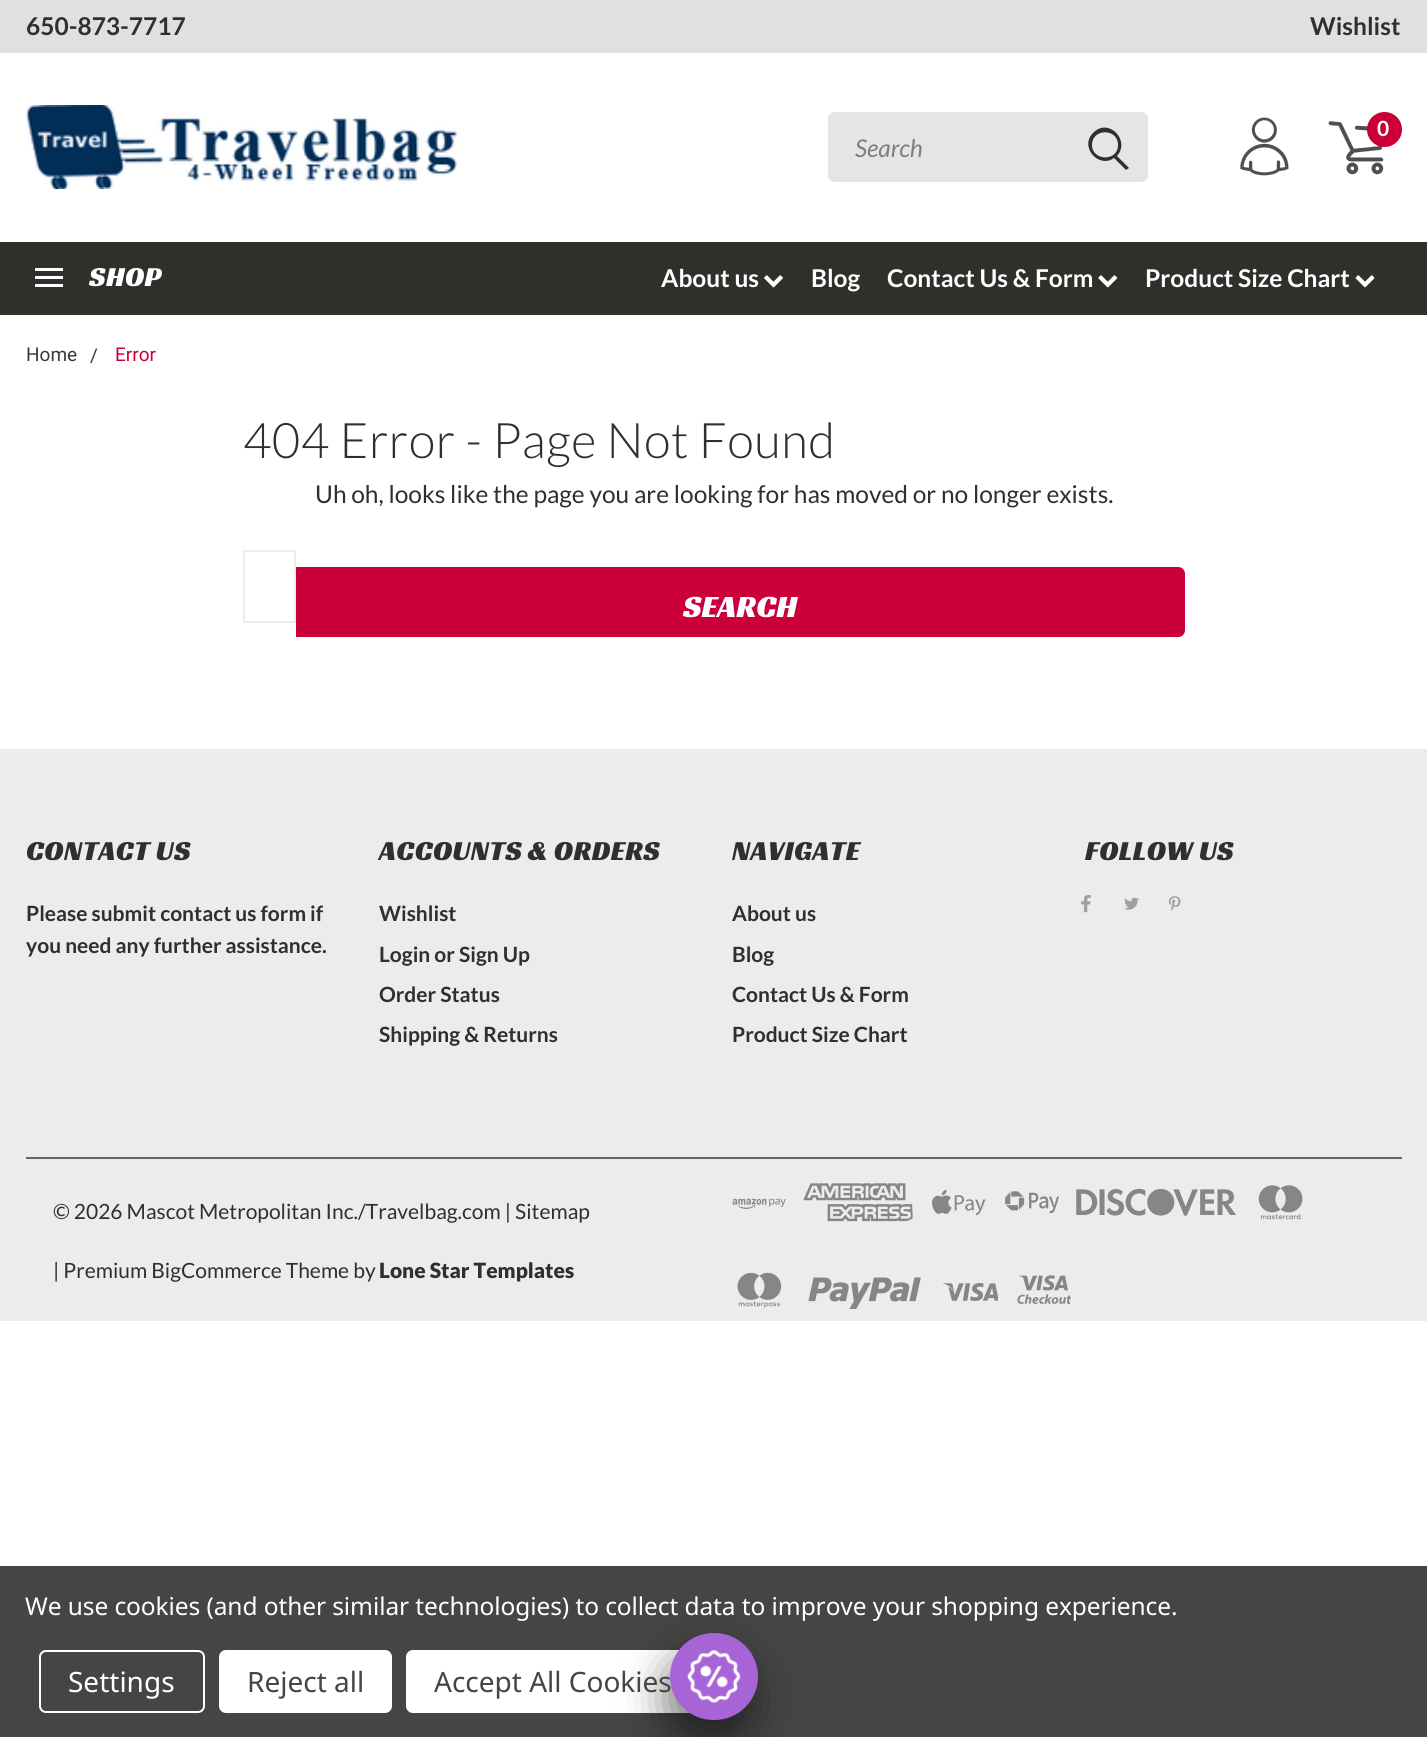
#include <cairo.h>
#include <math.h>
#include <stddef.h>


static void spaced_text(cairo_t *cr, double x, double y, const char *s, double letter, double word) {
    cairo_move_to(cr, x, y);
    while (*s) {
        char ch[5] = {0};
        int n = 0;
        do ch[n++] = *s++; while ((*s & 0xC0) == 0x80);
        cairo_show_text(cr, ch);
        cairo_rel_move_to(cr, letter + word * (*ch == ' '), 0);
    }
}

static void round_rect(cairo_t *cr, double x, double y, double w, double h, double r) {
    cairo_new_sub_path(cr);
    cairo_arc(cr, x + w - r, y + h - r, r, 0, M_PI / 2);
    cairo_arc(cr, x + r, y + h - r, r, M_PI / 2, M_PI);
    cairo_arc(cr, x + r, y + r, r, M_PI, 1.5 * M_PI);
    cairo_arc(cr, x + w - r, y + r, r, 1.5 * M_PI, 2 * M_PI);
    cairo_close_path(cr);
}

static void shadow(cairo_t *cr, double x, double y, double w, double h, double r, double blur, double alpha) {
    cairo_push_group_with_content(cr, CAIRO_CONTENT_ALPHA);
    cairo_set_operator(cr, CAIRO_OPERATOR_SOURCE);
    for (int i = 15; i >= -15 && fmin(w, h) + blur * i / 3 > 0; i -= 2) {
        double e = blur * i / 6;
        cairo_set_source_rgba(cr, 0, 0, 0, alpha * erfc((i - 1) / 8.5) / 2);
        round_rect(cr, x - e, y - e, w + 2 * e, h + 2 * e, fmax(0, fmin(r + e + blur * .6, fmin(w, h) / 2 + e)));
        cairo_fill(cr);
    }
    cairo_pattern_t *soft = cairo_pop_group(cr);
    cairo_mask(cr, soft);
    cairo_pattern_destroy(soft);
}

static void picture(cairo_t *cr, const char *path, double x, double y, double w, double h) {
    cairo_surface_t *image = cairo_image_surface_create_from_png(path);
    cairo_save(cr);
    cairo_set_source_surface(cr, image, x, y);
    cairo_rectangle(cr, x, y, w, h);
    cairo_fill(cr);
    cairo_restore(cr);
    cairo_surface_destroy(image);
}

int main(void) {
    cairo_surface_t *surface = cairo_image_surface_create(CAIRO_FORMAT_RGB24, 1427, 1737);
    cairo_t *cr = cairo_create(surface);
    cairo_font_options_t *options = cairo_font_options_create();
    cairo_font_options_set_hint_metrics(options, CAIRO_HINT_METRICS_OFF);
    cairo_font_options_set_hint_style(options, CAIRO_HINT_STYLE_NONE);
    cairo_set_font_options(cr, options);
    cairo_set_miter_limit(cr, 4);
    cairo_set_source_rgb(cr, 1, 1, 1);
    cairo_paint(cr);
    cairo_set_source_rgb(cr, 0.878, 0.878, 0.878);
    cairo_rectangle(cr, 0, 0, 1427, 53);
    cairo_fill(cr);
    cairo_select_font_face(cr, "Lato", CAIRO_FONT_SLANT_NORMAL, CAIRO_FONT_WEIGHT_BOLD);
    cairo_set_font_size(cr, 24.5);
    cairo_set_source_rgb(cr, 0.184, 0.184, 0.169);
    cairo_move_to(cr, 26, 35);
    cairo_show_text(cr, "650-873-7717");
    cairo_move_to(cr, 1310, 35);
    cairo_show_text(cr, "Wishlist");
    picture(cr, "img1.png", 26, 105, 432, 84);
    picture(cr, "img2.png", 1240, 117, 49, 59);
    picture(cr, "img3.png", 1328, 121, 56, 54);
    cairo_set_source_rgb(cr, 0.796, 0, 0.224);
    cairo_arc(cr, 1384.5, 129.5, 17.5, 0, 2 * M_PI);
    cairo_fill(cr);
    cairo_set_font_size(cr, 21);
    cairo_set_source_rgb(cr, 1, 1, 1);
    cairo_move_to(cr, 1377, 136);
    cairo_show_text(cr, "0");
    cairo_set_source_rgb(cr, 0.898, 0.898, 0.898);
    round_rect(cr, 829, 113, 318, 68, 6);
    cairo_fill_preserve(cr);
    cairo_stroke(cr);
    cairo_select_font_face(cr, "Lato", CAIRO_FONT_SLANT_ITALIC, CAIRO_FONT_WEIGHT_NORMAL);
    cairo_set_font_size(cr, 24.5);
    cairo_set_source_rgb(cr, 0.498, 0.498, 0.498);
    cairo_move_to(cr, 855, 157);
    cairo_show_text(cr, "Search");
    cairo_set_source_rgb(cr, 0.184, 0.184, 0.169);
    cairo_new_path(cr);
    cairo_move_to(cr, 1129, 168);
    cairo_line_to(cr, 1117, 156);
    cairo_curve_to(cr, 1131, 140, 1108, 117, 1093, 133);
    cairo_curve_to(cr, 1079, 147, 1099, 169, 1114, 158);
    cairo_line_to(cr, 1126, 170);
    cairo_close_path(cr);
    cairo_move_to(cr, 1092, 145);
    cairo_curve_to(cr, 1092, 128, 1118, 128, 1118, 145);
    cairo_curve_to(cr, 1118, 162, 1092, 161, 1092, 145);
    cairo_close_path(cr);
    cairo_fill(cr);
    cairo_rectangle(cr, 0, 242, 1427, 73);
    cairo_fill(cr);
    cairo_set_source_rgb(cr, 1, 1, 1);
    cairo_rectangle(cr, 35, 268, 28, 3);
    cairo_fill(cr);
    cairo_rectangle(cr, 35, 276, 28, 3);
    cairo_fill(cr);
    cairo_rectangle(cr, 35, 284, 28, 3);
    cairo_fill(cr);
    cairo_select_font_face(cr, "Racing Sans One", CAIRO_FONT_SLANT_NORMAL, CAIRO_FONT_WEIGHT_NORMAL);
    cairo_set_font_size(cr, 28);
    spaced_text(cr, 89, 286, "SHOP", 0.45, 0);
    cairo_select_font_face(cr, "Lato", CAIRO_FONT_SLANT_NORMAL, CAIRO_FONT_WEIGHT_BOLD);
    cairo_set_font_size(cr, 24.5);
    cairo_move_to(cr, 661, 287);
    cairo_show_text(cr, "About us");
    picture(cr, "img4.png", 764, 275, 19, 13);
    cairo_move_to(cr, 811, 287);
    cairo_show_text(cr, "Blog");
    cairo_move_to(cr, 887, 287);
    cairo_show_text(cr, "Contact Us & Form");
    picture(cr, "img5.png", 1098, 275, 20, 13);
    cairo_move_to(cr, 1145, 287);
    cairo_show_text(cr, "Product Size Chart");
    picture(cr, "img6.png", 1355, 275, 20, 13);
    cairo_select_font_face(cr, "Roboto", CAIRO_FONT_SLANT_NORMAL, CAIRO_FONT_WEIGHT_NORMAL);
    cairo_set_font_size(cr, 19);
    cairo_set_source_rgb(cr, 0.224, 0.224, 0.224);
    cairo_move_to(cr, 26, 361);
    cairo_show_text(cr, "Home");
    cairo_move_to(cr, 90, 362);
    cairo_show_text(cr, "/");
    cairo_set_source_rgb(cr, 0.796, 0, 0.224);
    cairo_move_to(cr, 115, 361);
    cairo_show_text(cr, "Error");
    cairo_select_font_face(cr, "Lato Light", CAIRO_FONT_SLANT_NORMAL, CAIRO_FONT_WEIGHT_NORMAL);
    cairo_set_font_size(cr, 49);
    cairo_set_source_rgb(cr, 0.184, 0.184, 0.169);
    spaced_text(cr, 243, 458, "404 Error - Page Not Found", 0.45, 0);
    cairo_select_font_face(cr, "Lato", CAIRO_FONT_SLANT_NORMAL, CAIRO_FONT_WEIGHT_NORMAL);
    cairo_set_font_size(cr, 24.5);
    cairo_move_to(cr, 315, 503);
    cairo_show_text(cr, "Uh oh, looks like the page you are looking for has moved or no longer exists.");
    cairo_rectangle(cr, 244, 551, 51, 71);
    cairo_set_source_rgb(cr, 0.922, 0.922, 0.922);
    cairo_stroke(cr);
    cairo_set_source_rgb(cr, 0.796, 0, 0.224);
    cairo_new_path(cr);
    cairo_move_to(cr, 297, 568);
    cairo_line_to(cr, 1178, 568);
    cairo_curve_to(cr, 1181.5, 568, 1184, 570.5, 1184, 574);
    cairo_line_to(cr, 1184, 630);
    cairo_curve_to(cr, 1184, 633.5, 1181.5, 636, 1178, 636);
    cairo_line_to(cr, 297, 636);
    cairo_close_path(cr);
    cairo_fill_preserve(cr);
    cairo_stroke(cr);
    cairo_select_font_face(cr, "Racing Sans One", CAIRO_FONT_SLANT_NORMAL, CAIRO_FONT_WEIGHT_NORMAL);
    cairo_set_font_size(cr, 31.5);
    cairo_set_source_rgb(cr, 1, 1, 1);
    cairo_move_to(cr, 683, 617);
    cairo_show_text(cr, "SEARCH");
    cairo_set_source_rgb(cr, 0.922, 0.922, 0.922);
    cairo_rectangle(cr, 0, 749, 1427, 572);
    cairo_fill(cr);
    cairo_set_font_size(cr, 28);
    cairo_set_source_rgb(cr, 0.184, 0.184, 0.169);
    spaced_text(cr, 26, 860, "CONTACT US", 0.45, 0);
    cairo_select_font_face(cr, "Lato", CAIRO_FONT_SLANT_NORMAL, CAIRO_FONT_WEIGHT_BOLD);
    cairo_set_font_size(cr, 21);
    cairo_move_to(cr, 26, 921);
    cairo_show_text(cr, "Please submit contact us form if");
    cairo_move_to(cr, 26, 953);
    cairo_show_text(cr, "you need any further assistance.");
    cairo_select_font_face(cr, "Racing Sans One", CAIRO_FONT_SLANT_NORMAL, CAIRO_FONT_WEIGHT_NORMAL);
    cairo_set_font_size(cr, 28);
    spaced_text(cr, 379, 860, "ACCOUNTS & ORDERS", 0.45, 0);
    cairo_select_font_face(cr, "Lato", CAIRO_FONT_SLANT_NORMAL, CAIRO_FONT_WEIGHT_BOLD);
    cairo_set_font_size(cr, 21);
    cairo_move_to(cr, 379, 921);
    cairo_show_text(cr, "Wishlist");
    cairo_move_to(cr, 379, 962);
    cairo_show_text(cr, "Login or");
    cairo_move_to(cr, 459, 962);
    cairo_show_text(cr, "Sign Up");
    cairo_move_to(cr, 379, 1002);
    cairo_show_text(cr, "Order Status");
    cairo_move_to(cr, 379, 1042);
    cairo_show_text(cr, "Shipping & Returns");
    cairo_select_font_face(cr, "Racing Sans One", CAIRO_FONT_SLANT_NORMAL, CAIRO_FONT_WEIGHT_NORMAL);
    cairo_set_font_size(cr, 28);
    spaced_text(cr, 732, 860, "NAVIGATE", 0.45, 0);
    cairo_select_font_face(cr, "Lato", CAIRO_FONT_SLANT_NORMAL, CAIRO_FONT_WEIGHT_BOLD);
    cairo_set_font_size(cr, 21);
    cairo_move_to(cr, 732, 921);
    cairo_show_text(cr, "About us");
    cairo_move_to(cr, 732, 962);
    cairo_show_text(cr, "Blog");
    cairo_move_to(cr, 732, 1002);
    cairo_show_text(cr, "Contact Us & Form");
    cairo_move_to(cr, 732, 1042);
    cairo_show_text(cr, "Product Size Chart");
    cairo_select_font_face(cr, "Racing Sans One", CAIRO_FONT_SLANT_NORMAL, CAIRO_FONT_WEIGHT_NORMAL);
    cairo_set_font_size(cr, 28);
    spaced_text(cr, 1085, 860, "FOLLOW US", 0.45, 0);
    picture(cr, "img7.png", 1081, 895, 10, 18);
    picture(cr, "img8.png", 1124, 897, 15, 13);
    picture(cr, "img9.png", 1168, 896, 13, 15);
    cairo_set_source_rgb(cr, 0.396, 0.396, 0.396);
    cairo_rectangle(cr, 26, 1157, 1376, 2);
    cairo_fill(cr);
    cairo_select_font_face(cr, "Lato", CAIRO_FONT_SLANT_NORMAL, CAIRO_FONT_WEIGHT_NORMAL);
    cairo_set_font_size(cr, 21);
    cairo_set_source_rgb(cr, 0.184, 0.184, 0.169);
    cairo_move_to(cr, 53, 1219);
    cairo_show_text(cr, "© 2026 Mascot Metropolitan Inc./Travelbag.com | Sitemap");
    cairo_move_to(cr, 53, 1278);
    cairo_show_text(cr, "| Premium BigCommerce Theme by");
    cairo_select_font_face(cr, "Lato Black", CAIRO_FONT_SLANT_NORMAL, CAIRO_FONT_WEIGHT_NORMAL);
    cairo_move_to(cr, 379, 1278);
    cairo_show_text(cr, "Lone Star Templates");
    picture(cr, "img10.png", 732, 1198, 54, 11);
    picture(cr, "img11.png", 803, 1183, 110, 39);
    picture(cr, "img12.png", 932, 1189, 54, 27);
    picture(cr, "img13.png", 1005, 1191, 54, 23);
    picture(cr, "img14.png", 1076, 1188, 160, 28);
    picture(cr, "img15.png", 1258, 1185, 45, 35);
    picture(cr, "img16.png", 737, 1272, 45, 36);
    picture(cr, "img17.png", 808, 1277, 113, 32);
    picture(cr, "img18.png", 943, 1283, 55, 18);
    picture(cr, "img19.png", 1017, 1275, 54, 29);
    cairo_set_source_rgb(cr, 0.271, 0.271, 0.271);
    cairo_rectangle(cr, 0, 1566, 1427, 171);
    cairo_fill(cr);
    cairo_set_source_rgb(cr, 1, 1, 1);
    round_rect(cr, 406, 1650, 294, 63, 7);
    cairo_fill(cr);
    cairo_set_source_rgb(cr, 0, 0, 0);
    shadow(cr, 665, 1654, 88, 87, 43.5, 21, 0.5);
    cairo_select_font_face(cr, "Noto Sans", CAIRO_FONT_SLANT_NORMAL, CAIRO_FONT_WEIGHT_NORMAL);
    cairo_set_font_size(cr, 28);
    cairo_set_source_rgb(cr, 0.271, 0.271, 0.271);
    cairo_move_to(cr, 434, 1692);
    cairo_show_text(cr, "Accept All Cookies");
    cairo_set_source_rgb(cr, 0.651, 0.392, 0.843);
    round_rect(cr, 670, 1633, 88, 87, 43.5);
    cairo_fill(cr);
    picture(cr, "img20.png", 687, 1650, 54, 54);
    cairo_set_font_size(cr, 24.5);
    cairo_set_source_rgb(cr, 1, 1, 1);
    spaced_text(cr, 25, 1615, "We use cookies (and other similar technologies) to collect data to improve your shopping experience.", -0.09, 0);
    round_rect(cr, 40, 1651, 164, 61, 6);
    cairo_stroke(cr);
    cairo_set_font_size(cr, 28);
    cairo_move_to(cr, 68, 1692);
    cairo_show_text(cr, "Settings");
    round_rect(cr, 219, 1650, 173, 63, 7);
    cairo_fill(cr);
    cairo_set_source_rgb(cr, 0.271, 0.271, 0.271);
    cairo_move_to(cr, 247, 1692);
    cairo_show_text(cr, "Reject all");
    cairo_surface_write_to_png(surface, "page.png");
    cairo_font_options_destroy(options);
    cairo_destroy(cr);
    cairo_surface_destroy(surface);
    return 0;
}
